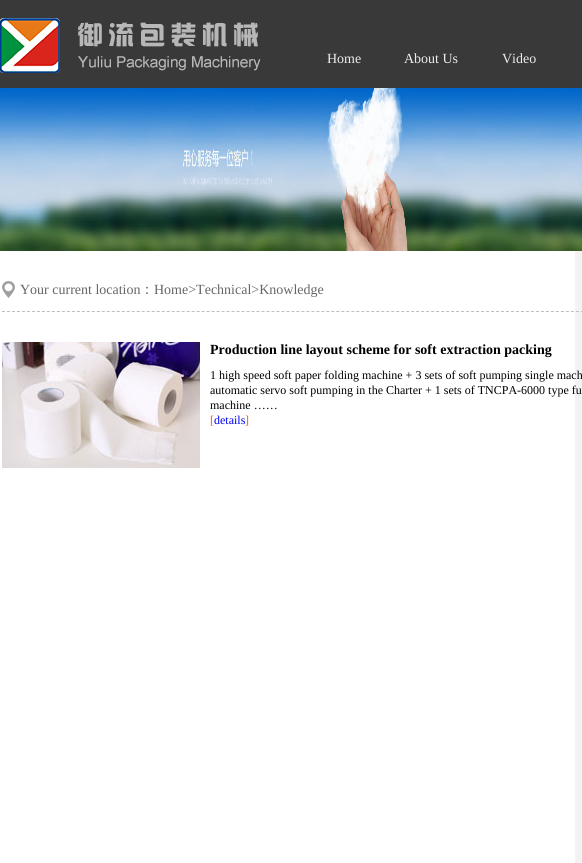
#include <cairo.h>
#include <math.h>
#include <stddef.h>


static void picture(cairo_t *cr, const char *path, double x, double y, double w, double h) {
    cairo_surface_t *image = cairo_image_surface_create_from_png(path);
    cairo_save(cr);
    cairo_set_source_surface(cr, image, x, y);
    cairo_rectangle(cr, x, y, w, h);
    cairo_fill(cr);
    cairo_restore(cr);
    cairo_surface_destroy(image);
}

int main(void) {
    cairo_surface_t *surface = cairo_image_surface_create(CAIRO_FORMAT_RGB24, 582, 863);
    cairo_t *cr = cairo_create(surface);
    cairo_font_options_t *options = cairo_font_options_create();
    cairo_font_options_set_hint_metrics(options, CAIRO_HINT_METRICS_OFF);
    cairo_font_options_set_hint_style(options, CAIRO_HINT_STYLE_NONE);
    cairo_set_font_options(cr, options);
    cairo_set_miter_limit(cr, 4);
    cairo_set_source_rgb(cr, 1, 1, 1);
    cairo_paint(cr);
    cairo_set_source_rgb(cr, 0.224, 0.224, 0.224);
    cairo_rectangle(cr, 0, 0, 582, 88);
    cairo_fill(cr);
    picture(cr, "img1.png", 0, 18, 261, 55);
    cairo_select_font_face(cr, "Liberation Serif", CAIRO_FONT_SLANT_NORMAL, CAIRO_FONT_WEIGHT_NORMAL);
    cairo_set_font_size(cr, 14);
    cairo_set_source_rgb(cr, 0.925, 0.925, 0.925);
    cairo_move_to(cr, 327, 63);
    cairo_show_text(cr, "Home");
    cairo_move_to(cr, 404, 63);
    cairo_show_text(cr, "About Us");
    cairo_move_to(cr, 502, 63);
    cairo_show_text(cr, "Video");
    picture(cr, "img2.png", 0, 88, 582, 163);
    picture(cr, "img3.png", 575, 251, 7, 612);
    cairo_new_path(cr);
    cairo_move_to(cr, 2, 311.5);
    cairo_line_to(cr, 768, 311.5);
    cairo_set_source_rgb(cr, 0.749, 0.749, 0.749);
    cairo_set_line_width(cr, 1);
    cairo_set_dash(cr, (double[]){3, 1.99}, 2, 0);
    cairo_stroke(cr);
    picture(cr, "img4.png", 2, 281, 13, 17);
    cairo_set_source_rgb(cr, 0.4, 0.4, 0.4);
    cairo_move_to(cr, 20, 294);
    cairo_show_text(cr, "Your current location");
    cairo_select_font_face(cr, "WenQuanYi Zen Hei Medium", CAIRO_FONT_SLANT_NORMAL, CAIRO_FONT_WEIGHT_NORMAL);
    cairo_move_to(cr, 140, 294);
    cairo_show_text(cr, "：");
    cairo_select_font_face(cr, "Liberation Serif", CAIRO_FONT_SLANT_NORMAL, CAIRO_FONT_WEIGHT_NORMAL);
    cairo_move_to(cr, 154, 294);
    cairo_show_text(cr, "Home>Technical>Knowledge");
    picture(cr, "img5.png", 2, 342, 198, 126);
    cairo_select_font_face(cr, "Liberation Serif", CAIRO_FONT_SLANT_NORMAL, CAIRO_FONT_WEIGHT_BOLD);
    cairo_set_source_rgb(cr, 0, 0, 0);
    cairo_move_to(cr, 210, 354);
    cairo_show_text(cr, "Production line layout scheme for soft extraction packing");
    cairo_select_font_face(cr, "Liberation Serif", CAIRO_FONT_SLANT_NORMAL, CAIRO_FONT_WEIGHT_NORMAL);
    cairo_set_font_size(cr, 12);
    cairo_move_to(cr, 210, 379);
    cairo_show_text(cr, "1 high speed soft paper folding machine + 3 sets of soft pumping single mach");
    cairo_move_to(cr, 210, 394);
    cairo_show_text(cr, "automatic servo soft pumping in the Charter + 1 sets of TNCPA-6000 type fu");
    cairo_move_to(cr, 210, 409);
    cairo_show_text(cr, "machine ……");
    cairo_set_source_rgb(cr, 1, 0.329, 0);
    cairo_move_to(cr, 210, 424);
    cairo_show_text(cr, "[");
    cairo_set_source_rgb(cr, 0, 0, 0.933);
    cairo_move_to(cr, 214, 424);
    cairo_show_text(cr, "details");
    cairo_set_source_rgb(cr, 1, 0.329, 0);
    cairo_move_to(cr, 245, 424);
    cairo_show_text(cr, "]");
    cairo_surface_write_to_png(surface, "page.png");
    cairo_font_options_destroy(options);
    cairo_destroy(cr);
    cairo_surface_destroy(surface);
    return 0;
}
